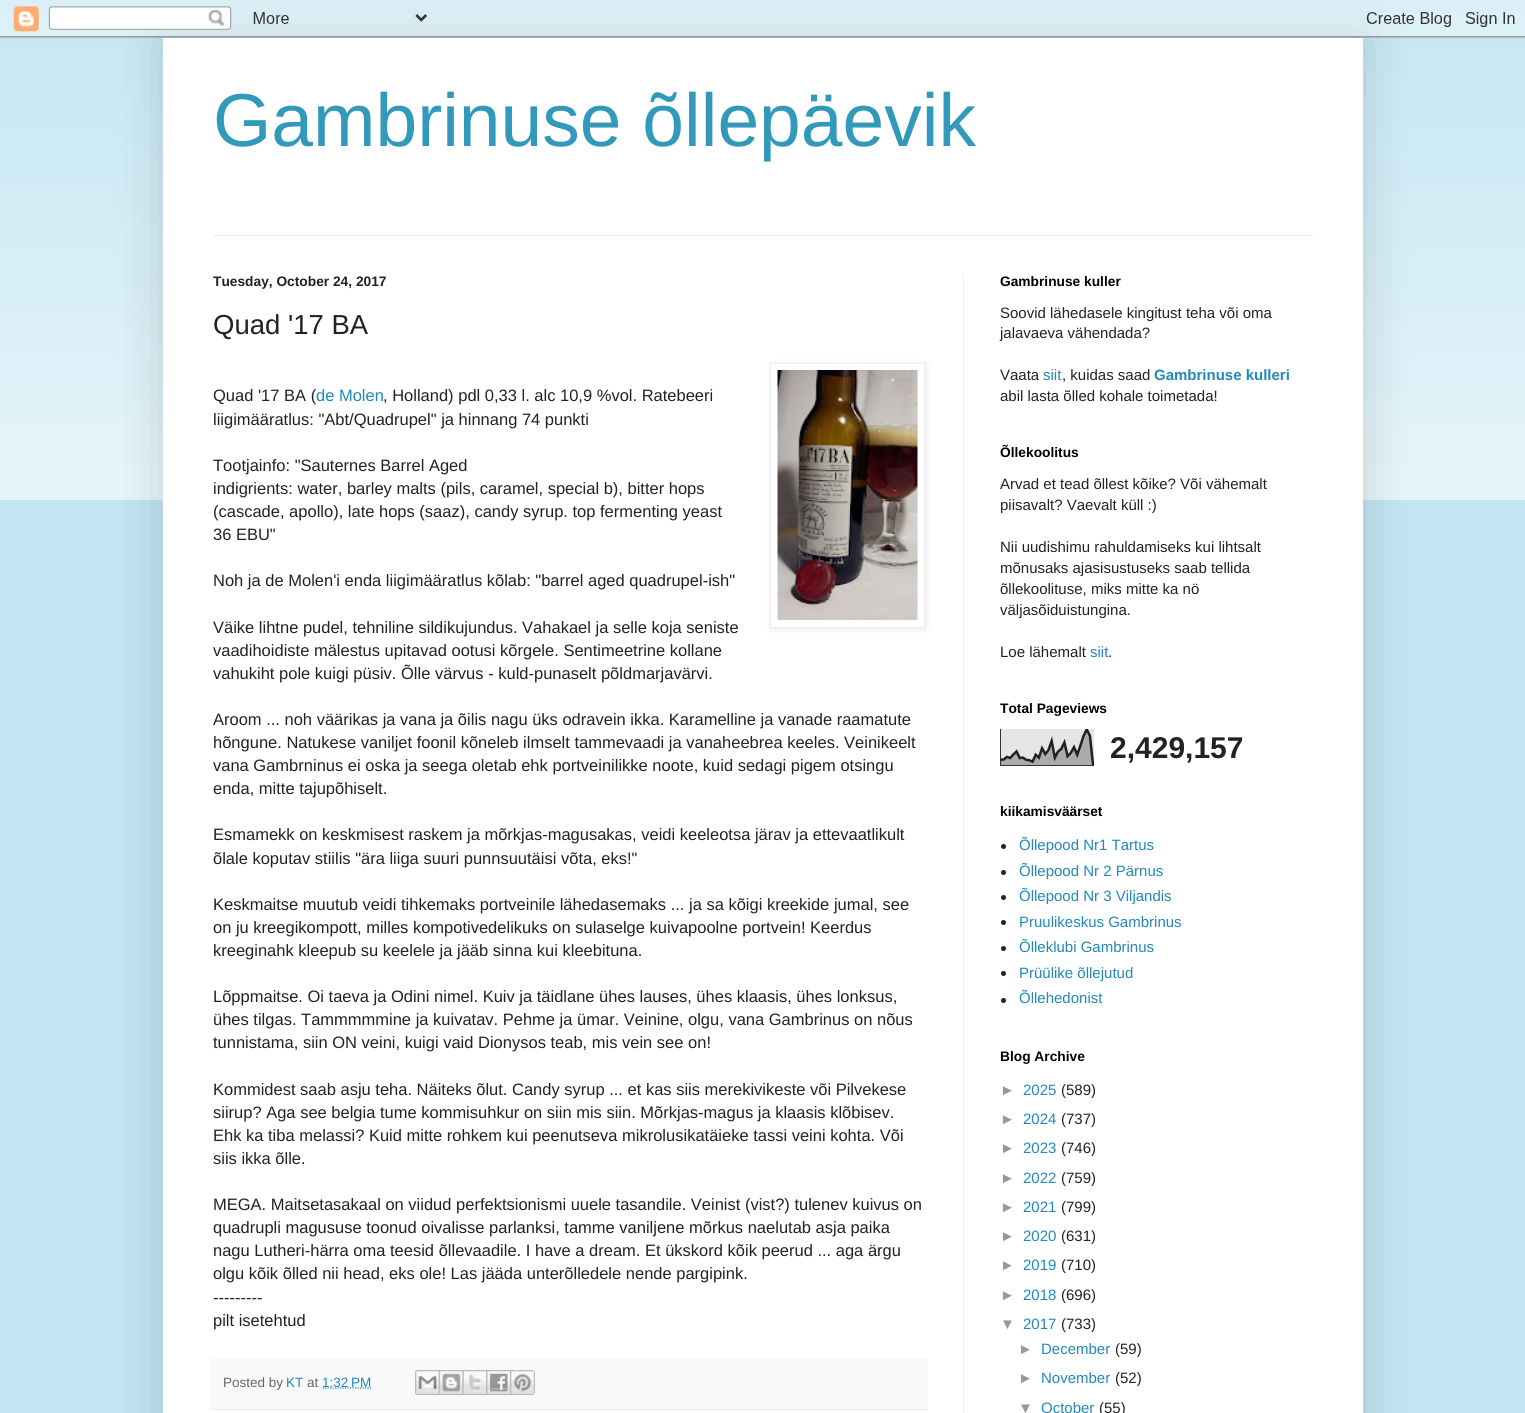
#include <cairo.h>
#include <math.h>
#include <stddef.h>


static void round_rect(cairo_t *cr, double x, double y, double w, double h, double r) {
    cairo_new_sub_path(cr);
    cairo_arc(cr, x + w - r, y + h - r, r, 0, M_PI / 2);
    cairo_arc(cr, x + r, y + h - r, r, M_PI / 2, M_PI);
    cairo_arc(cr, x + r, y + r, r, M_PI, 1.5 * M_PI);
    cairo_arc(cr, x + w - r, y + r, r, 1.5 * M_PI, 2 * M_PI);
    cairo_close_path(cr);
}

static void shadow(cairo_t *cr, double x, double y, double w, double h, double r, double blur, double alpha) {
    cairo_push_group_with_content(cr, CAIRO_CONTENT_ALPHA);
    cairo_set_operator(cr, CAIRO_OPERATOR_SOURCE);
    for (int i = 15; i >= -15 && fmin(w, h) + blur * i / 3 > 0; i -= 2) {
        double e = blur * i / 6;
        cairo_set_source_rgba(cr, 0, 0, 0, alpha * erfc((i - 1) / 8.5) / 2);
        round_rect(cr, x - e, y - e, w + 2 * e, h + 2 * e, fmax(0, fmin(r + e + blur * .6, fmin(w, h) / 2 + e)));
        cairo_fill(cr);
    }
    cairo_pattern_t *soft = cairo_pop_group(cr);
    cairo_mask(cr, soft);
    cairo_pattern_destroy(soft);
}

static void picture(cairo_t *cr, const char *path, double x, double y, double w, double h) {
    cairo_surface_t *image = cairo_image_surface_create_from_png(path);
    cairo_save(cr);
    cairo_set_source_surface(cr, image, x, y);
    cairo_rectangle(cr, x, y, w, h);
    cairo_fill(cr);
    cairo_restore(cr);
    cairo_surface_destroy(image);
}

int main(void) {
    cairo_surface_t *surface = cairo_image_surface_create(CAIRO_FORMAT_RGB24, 1525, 1413);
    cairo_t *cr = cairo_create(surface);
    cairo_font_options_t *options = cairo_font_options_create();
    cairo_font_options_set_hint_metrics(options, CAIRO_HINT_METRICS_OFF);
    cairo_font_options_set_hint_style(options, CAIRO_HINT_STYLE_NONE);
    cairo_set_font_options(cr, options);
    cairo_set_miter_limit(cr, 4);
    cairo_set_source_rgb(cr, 0.757, 0.898, 0.949);
    cairo_paint(cr);
    picture(cr, "img2.png", 0, 13, 1525, 487);
    cairo_set_source_rgb(cr, 0, 0, 0);
    shadow(cr, 163, 38, 1200, 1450, 0, 25, 0.15);
    picture(cr, "img1.png", 0, 0, 1525, 38);
    cairo_set_source_rgb(cr, 1, 1, 1);
    cairo_rectangle(cr, 163, 38, 1200, 1375);
    cairo_fill(cr);
    cairo_select_font_face(cr, "Liberation Sans", CAIRO_FONT_SLANT_NORMAL, CAIRO_FONT_WEIGHT_NORMAL);
    cairo_set_font_size(cr, 75);
    cairo_set_source_rgb(cr, 0.2, 0.6, 0.733);
    cairo_move_to(cr, 213, 146);
    cairo_show_text(cr, "Gambrinuse õllepäevik");
    cairo_set_source_rgb(cr, 0.933, 0.933, 0.933);
    cairo_rectangle(cr, 213, 235, 1100, 1);
    cairo_fill(cr);
    cairo_rectangle(cr, 963, 274, 1, 1139);
    cairo_fill(cr);
    cairo_select_font_face(cr, "Liberation Sans", CAIRO_FONT_SLANT_NORMAL, CAIRO_FONT_WEIGHT_BOLD);
    cairo_set_font_size(cr, 13.75);
    cairo_set_source_rgb(cr, 0.133, 0.133, 0.133);
    cairo_move_to(cr, 213, 286);
    cairo_show_text(cr, "Tuesday, October 24, 2017");
    cairo_select_font_face(cr, "Liberation Sans", CAIRO_FONT_SLANT_NORMAL, CAIRO_FONT_WEIGHT_NORMAL);
    cairo_set_font_size(cr, 27.5);
    cairo_move_to(cr, 213, 334);
    cairo_show_text(cr, "Quad '17 BA");
    cairo_set_font_size(cr, 16.5);
    cairo_move_to(cr, 213, 401);
    cairo_show_text(cr, "Quad '17 BA (");
    cairo_set_source_rgb(cr, 0.133, 0.533, 0.733);
    cairo_move_to(cr, 316, 401);
    cairo_show_text(cr, "de Molen");
    cairo_set_source_rgb(cr, 0.133, 0.133, 0.133);
    cairo_move_to(cr, 383, 401);
    cairo_show_text(cr, ", Holland) pdl 0,33 l. alc 10,9 %vol. Ratebeeri");
    cairo_set_source_rgb(cr, 0, 0, 0);
    shadow(cr, 771, 364, 155, 265, 0, 3, 0.1);
    cairo_set_source_rgb(cr, 1, 1, 1);
    cairo_rectangle(cr, 770.5, 363.5, 154, 264);
    cairo_fill_preserve(cr);
    cairo_set_source_rgb(cr, 0.933, 0.933, 0.933);
    cairo_set_line_width(cr, 1);
    cairo_stroke(cr);
    picture(cr, "img3.png", 777, 370, 141, 250);
    cairo_set_source_rgb(cr, 0.133, 0.133, 0.133);
    cairo_move_to(cr, 213, 425);
    cairo_show_text(cr, "liigimääratlus: \"Abt/Quadrupel\" ja hinnang 74 punkti");
    cairo_move_to(cr, 213, 471);
    cairo_show_text(cr, "Tootjainfo: \"Sauternes Barrel Aged");
    cairo_move_to(cr, 213, 494);
    cairo_show_text(cr, "indigrients: water, barley malts (pils, caramel, special b), bitter hops");
    cairo_move_to(cr, 213, 517);
    cairo_show_text(cr, "(cascade, apollo), late hops (saaz), candy syrup. top fermenting yeast");
    cairo_move_to(cr, 213, 540);
    cairo_show_text(cr, "36 EBU\"");
    cairo_move_to(cr, 213, 586);
    cairo_show_text(cr, "Noh ja de Molen'i enda liigimääratlus kõlab: \"barrel aged quadrupel-ish\"");
    cairo_move_to(cr, 213, 633);
    cairo_show_text(cr, "Väike lihtne pudel, tehniline sildikujundus. Vahakael ja selle koja seniste");
    cairo_move_to(cr, 213, 656);
    cairo_show_text(cr, "vaadihoidiste mälestus upitavad ootusi kõrgele. Sentimeetrine kollane");
    cairo_move_to(cr, 213, 679);
    cairo_show_text(cr, "vahukiht pole kuigi püsiv. Õlle värvus - kuld-punaselt põldmarjavärvi.");
    cairo_move_to(cr, 213, 725);
    cairo_show_text(cr, "Aroom ... noh väärikas ja vana ja õilis nagu üks odravein ikka. Karamelline ja vanade raamatute");
    cairo_move_to(cr, 213, 748);
    cairo_show_text(cr, "hõngune. Natukese vaniljet foonil kõneleb ilmselt tammevaadi ja vanaheebrea keeles. Veinikeelt");
    cairo_move_to(cr, 213, 771);
    cairo_show_text(cr, "vana Gambrninus ei oska ja seega oletab ehk portveinilikke noote, kuid sedagi pigem otsingu");
    cairo_move_to(cr, 213, 794);
    cairo_show_text(cr, "enda, mitte tajupõhiselt.");
    cairo_move_to(cr, 213, 840);
    cairo_show_text(cr, "Esmamekk on keskmisest raskem ja mõrkjas-magusakas, veidi keeleotsa järav ja ettevaatlikult");
    cairo_move_to(cr, 213, 864);
    cairo_show_text(cr, "õlale koputav stiilis \"ära liiga suuri punnsuutäisi võta, eks!\"");
    cairo_move_to(cr, 213, 910);
    cairo_show_text(cr, "Keskmaitse muutub veidi tihkemaks portveinile lähedasemaks ... ja sa kõigi kreekide jumal, see");
    cairo_move_to(cr, 213, 933);
    cairo_show_text(cr, "on ju kreegikompott, milles kompotivedelikuks on sulaselge kuivapoolne portvein! Keerdus");
    cairo_move_to(cr, 213, 956);
    cairo_show_text(cr, "kreeginahk kleepub su keelele ja jääb sinna kui kleebituna.");
    cairo_move_to(cr, 213, 1002);
    cairo_show_text(cr, "Lõppmaitse. Oi taeva ja Odini nimel. Kuiv ja täidlane ühes lauses, ühes klaasis, ühes lonksus,");
    cairo_move_to(cr, 213, 1025);
    cairo_show_text(cr, "ühes tilgas. Tammmmmine ja kuivatav. Pehme ja ümar. Veinine, olgu, vana Gambrinus on nõus");
    cairo_move_to(cr, 213, 1048);
    cairo_show_text(cr, "tunnistama, siin ON veini, kuigi vaid Dionysos teab, mis vein see on!");
    cairo_move_to(cr, 213, 1095);
    cairo_show_text(cr, "Kommidest saab asju teha. Näiteks õlut. Candy syrup ... et kas siis merekivikeste või Pilvekese");
    cairo_move_to(cr, 213, 1118);
    cairo_show_text(cr, "siirup? Aga see belgia tume kommisuhkur on siin mis siin. Mõrkjas-magus ja klaasis klõbisev.");
    cairo_move_to(cr, 213, 1141);
    cairo_show_text(cr, "Ehk ka tiba melassi? Kuid mitte rohkem kui peenutseva mikrolusikatäieke tassi veini kohta. Või");
    cairo_move_to(cr, 213, 1164);
    cairo_show_text(cr, "siis ikka õlle.");
    cairo_move_to(cr, 213, 1210);
    cairo_show_text(cr, "MEGA. Maitsetasakaal on viidud perfektsionismi uuele tasandile. Veinist (vist?) tulenev kuivus on");
    cairo_move_to(cr, 213, 1233);
    cairo_show_text(cr, "quadrupli magususe toonud oivalisse parlanksi, tamme vaniljene mõrkus naelutab asja paika");
    cairo_move_to(cr, 213, 1256);
    cairo_show_text(cr, "nagu Lutheri-härra oma teesid õllevaadile. I have a dream. Et ükskord kõik peerud ... aga ärgu");
    cairo_move_to(cr, 213, 1279);
    cairo_show_text(cr, "olgu kõik õlled nii head, eks ole! Las jääda unterõlledele nende pargipink.");
    cairo_move_to(cr, 213, 1303);
    cairo_show_text(cr, "---------");
    cairo_move_to(cr, 213, 1326);
    cairo_show_text(cr, "pilt isetehtud");
    cairo_set_source_rgb(cr, 0.976, 0.976, 0.976);
    cairo_rectangle(cr, 210, 1358, 718, 51);
    cairo_fill(cr);
    cairo_set_source_rgb(cr, 0.933, 0.933, 0.933);
    cairo_rectangle(cr, 210, 1409, 718, 1);
    cairo_fill(cr);
    cairo_set_font_size(cr, 13.5);
    cairo_set_source_rgb(cr, 0.4, 0.4, 0.4);
    cairo_move_to(cr, 223, 1387);
    cairo_show_text(cr, "Posted by");
    cairo_set_source_rgb(cr, 0.133, 0.533, 0.733);
    cairo_move_to(cr, 286, 1387);
    cairo_show_text(cr, "KT");
    cairo_set_source_rgb(cr, 0.4, 0.4, 0.4);
    cairo_move_to(cr, 307, 1387);
    cairo_show_text(cr, "at");
    cairo_new_path(cr);
    cairo_move_to(cr, 322.5, 1388);
    cairo_line_to(cr, 371.5, 1388);
    cairo_set_source_rgb(cr, 0.133, 0.533, 0.733);
    cairo_set_line_width(cr, 1.2);
    cairo_set_dash(cr, (double[]){1.25, 1.25}, 2, 0);
    cairo_stroke(cr);
    cairo_move_to(cr, 322, 1387);
    cairo_show_text(cr, "1:32 PM");
    picture(cr, "img4.png", 415, 1370, 24, 25);
    picture(cr, "img5.png", 438, 1370, 25, 25);
    picture(cr, "img6.png", 462, 1370, 25, 25);
    picture(cr, "img7.png", 486, 1370, 24, 25);
    picture(cr, "img8.png", 510, 1370, 25, 25);
    cairo_select_font_face(cr, "Liberation Sans", CAIRO_FONT_SLANT_NORMAL, CAIRO_FONT_WEIGHT_BOLD);
    cairo_set_font_size(cr, 13.75);
    cairo_set_source_rgb(cr, 0, 0, 0);
    cairo_move_to(cr, 1000, 286);
    cairo_show_text(cr, "Gambrinuse kuller");
    cairo_select_font_face(cr, "Liberation Sans", CAIRO_FONT_SLANT_NORMAL, CAIRO_FONT_WEIGHT_NORMAL);
    cairo_set_font_size(cr, 15);
    cairo_set_source_rgb(cr, 0.133, 0.133, 0.133);
    cairo_move_to(cr, 1000, 318);
    cairo_show_text(cr, "Soovid lähedasele kingitust teha või oma");
    cairo_move_to(cr, 1000, 338);
    cairo_show_text(cr, "jalavaeva vähendada?");
    cairo_move_to(cr, 1000, 380);
    cairo_show_text(cr, "Vaata");
    cairo_set_source_rgb(cr, 0.133, 0.533, 0.733);
    cairo_move_to(cr, 1043, 380);
    cairo_show_text(cr, "siit");
    cairo_set_source_rgb(cr, 0.133, 0.133, 0.133);
    cairo_move_to(cr, 1062, 380);
    cairo_show_text(cr, ", kuidas saad");
    cairo_select_font_face(cr, "Liberation Sans", CAIRO_FONT_SLANT_NORMAL, CAIRO_FONT_WEIGHT_BOLD);
    cairo_set_source_rgb(cr, 0.133, 0.533, 0.733);
    cairo_move_to(cr, 1154, 380);
    cairo_show_text(cr, "Gambrinuse kulleri");
    cairo_select_font_face(cr, "Liberation Sans", CAIRO_FONT_SLANT_NORMAL, CAIRO_FONT_WEIGHT_NORMAL);
    cairo_set_source_rgb(cr, 0.133, 0.133, 0.133);
    cairo_move_to(cr, 1000, 401);
    cairo_show_text(cr, "abil lasta õlled kohale toimetada!");
    cairo_select_font_face(cr, "Liberation Sans", CAIRO_FONT_SLANT_NORMAL, CAIRO_FONT_WEIGHT_BOLD);
    cairo_set_font_size(cr, 13.75);
    cairo_set_source_rgb(cr, 0, 0, 0);
    cairo_move_to(cr, 1000, 457);
    cairo_show_text(cr, "Õllekoolitus");
    cairo_select_font_face(cr, "Liberation Sans", CAIRO_FONT_SLANT_NORMAL, CAIRO_FONT_WEIGHT_NORMAL);
    cairo_set_font_size(cr, 15);
    cairo_set_source_rgb(cr, 0.133, 0.133, 0.133);
    cairo_move_to(cr, 1000, 489);
    cairo_show_text(cr, "Arvad et tead õllest kõike? Või vähemalt");
    cairo_move_to(cr, 1000, 510);
    cairo_show_text(cr, "piisavalt? Vaevalt küll :)");
    cairo_move_to(cr, 1000, 552);
    cairo_show_text(cr, "Nii uudishimu rahuldamiseks kui lihtsalt");
    cairo_move_to(cr, 1000, 573);
    cairo_show_text(cr, "mõnusaks ajasisustuseks saab tellida");
    cairo_move_to(cr, 1000, 594);
    cairo_show_text(cr, "õllekoolituse, miks mitte ka nö");
    cairo_move_to(cr, 1000, 615);
    cairo_show_text(cr, "väljasõiduistungina.");
    cairo_move_to(cr, 1000, 657);
    cairo_show_text(cr, "Loe lähemalt");
    cairo_set_source_rgb(cr, 0.133, 0.533, 0.733);
    cairo_move_to(cr, 1090, 657);
    cairo_show_text(cr, "siit");
    cairo_set_source_rgb(cr, 0.133, 0.133, 0.133);
    cairo_move_to(cr, 1108, 657);
    cairo_show_text(cr, ".");
    cairo_select_font_face(cr, "Liberation Sans", CAIRO_FONT_SLANT_NORMAL, CAIRO_FONT_WEIGHT_BOLD);
    cairo_set_font_size(cr, 13.75);
    cairo_set_source_rgb(cr, 0, 0, 0);
    cairo_move_to(cr, 1000, 713);
    cairo_show_text(cr, "Total Pageviews");
    picture(cr, "img9.png", 1000, 729, 94, 37);
    cairo_set_font_size(cr, 30);
    cairo_set_source_rgb(cr, 0.133, 0.133, 0.133);
    cairo_move_to(cr, 1110, 758);
    cairo_show_text(cr, "2,429,157");
    cairo_set_font_size(cr, 13.75);
    cairo_set_source_rgb(cr, 0, 0, 0);
    cairo_move_to(cr, 1000, 816);
    cairo_show_text(cr, "kiikamisväärset");
    cairo_set_source_rgb(cr, 0.133, 0.133, 0.133);
    cairo_new_path(cr);
    cairo_arc(cr, 1003.5, 846.5, 2.5, 0, 2 * M_PI);
    cairo_fill(cr);
    cairo_select_font_face(cr, "Liberation Sans", CAIRO_FONT_SLANT_NORMAL, CAIRO_FONT_WEIGHT_NORMAL);
    cairo_set_font_size(cr, 15);
    cairo_set_source_rgb(cr, 0.133, 0.533, 0.733);
    cairo_move_to(cr, 1019, 850);
    cairo_show_text(cr, "Õllepood Nr1 Tartus");
    cairo_set_source_rgb(cr, 0.133, 0.133, 0.133);
    cairo_new_path(cr);
    cairo_arc(cr, 1003.5, 872.5, 2.5, 0, 2 * M_PI);
    cairo_fill(cr);
    cairo_set_source_rgb(cr, 0.133, 0.533, 0.733);
    cairo_move_to(cr, 1019, 876);
    cairo_show_text(cr, "Õllepood Nr 2 Pärnus");
    cairo_set_source_rgb(cr, 0.133, 0.133, 0.133);
    cairo_new_path(cr);
    cairo_arc(cr, 1003.5, 897.5, 2.5, 0, 2 * M_PI);
    cairo_fill(cr);
    cairo_set_source_rgb(cr, 0.133, 0.533, 0.733);
    cairo_move_to(cr, 1019, 901);
    cairo_show_text(cr, "Õllepood Nr 3 Viljandis");
    cairo_set_source_rgb(cr, 0.133, 0.133, 0.133);
    cairo_new_path(cr);
    cairo_arc(cr, 1003.5, 922.5, 2.5, 0, 2 * M_PI);
    cairo_fill(cr);
    cairo_set_source_rgb(cr, 0.133, 0.533, 0.733);
    cairo_move_to(cr, 1019, 927);
    cairo_show_text(cr, "Pruulikeskus Gambrinus");
    cairo_set_source_rgb(cr, 0.133, 0.133, 0.133);
    cairo_new_path(cr);
    cairo_arc(cr, 1003.5, 948.5, 2.5, 0, 2 * M_PI);
    cairo_fill(cr);
    cairo_set_source_rgb(cr, 0.133, 0.533, 0.733);
    cairo_move_to(cr, 1019, 952);
    cairo_show_text(cr, "Õlleklubi Gambrinus");
    cairo_set_source_rgb(cr, 0.133, 0.133, 0.133);
    cairo_new_path(cr);
    cairo_arc(cr, 1003.5, 973.5, 2.5, 0, 2 * M_PI);
    cairo_fill(cr);
    cairo_set_source_rgb(cr, 0.133, 0.533, 0.733);
    cairo_move_to(cr, 1019, 978);
    cairo_show_text(cr, "Prüülike õllejutud");
    cairo_set_source_rgb(cr, 0.133, 0.133, 0.133);
    cairo_new_path(cr);
    cairo_arc(cr, 1003.5, 1000.5, 2.5, 0, 2 * M_PI);
    cairo_fill(cr);
    cairo_set_source_rgb(cr, 0.133, 0.533, 0.733);
    cairo_move_to(cr, 1019, 1003);
    cairo_show_text(cr, "Õllehedonist");
    cairo_select_font_face(cr, "Liberation Sans", CAIRO_FONT_SLANT_NORMAL, CAIRO_FONT_WEIGHT_BOLD);
    cairo_set_font_size(cr, 13.75);
    cairo_set_source_rgb(cr, 0, 0, 0);
    cairo_move_to(cr, 1000, 1061);
    cairo_show_text(cr, "Blog Archive");
    cairo_select_font_face(cr, "Liberation Sans", CAIRO_FONT_SLANT_NORMAL, CAIRO_FONT_WEIGHT_NORMAL);
    cairo_set_font_size(cr, 15);
    cairo_set_source_rgb(cr, 0.6, 0.6, 0.6);
    cairo_move_to(cr, 1000, 1095);
    cairo_show_text(cr, "►");
    cairo_set_source_rgb(cr, 0.133, 0.533, 0.733);
    cairo_move_to(cr, 1023, 1095);
    cairo_show_text(cr, "2025");
    cairo_set_source_rgb(cr, 0.133, 0.133, 0.133);
    cairo_move_to(cr, 1061, 1095);
    cairo_show_text(cr, "(589)");
    cairo_set_source_rgb(cr, 0.6, 0.6, 0.6);
    cairo_move_to(cr, 1000, 1124);
    cairo_show_text(cr, "►");
    cairo_set_source_rgb(cr, 0.133, 0.533, 0.733);
    cairo_move_to(cr, 1023, 1124);
    cairo_show_text(cr, "2024");
    cairo_set_source_rgb(cr, 0.133, 0.133, 0.133);
    cairo_move_to(cr, 1061, 1124);
    cairo_show_text(cr, "(737)");
    cairo_set_source_rgb(cr, 0.6, 0.6, 0.6);
    cairo_move_to(cr, 1000, 1153);
    cairo_show_text(cr, "►");
    cairo_set_source_rgb(cr, 0.133, 0.533, 0.733);
    cairo_move_to(cr, 1023, 1153);
    cairo_show_text(cr, "2023");
    cairo_set_source_rgb(cr, 0.133, 0.133, 0.133);
    cairo_move_to(cr, 1061, 1153);
    cairo_show_text(cr, "(746)");
    cairo_set_source_rgb(cr, 0.6, 0.6, 0.6);
    cairo_move_to(cr, 1000, 1183);
    cairo_show_text(cr, "►");
    cairo_set_source_rgb(cr, 0.133, 0.533, 0.733);
    cairo_move_to(cr, 1023, 1183);
    cairo_show_text(cr, "2022");
    cairo_set_source_rgb(cr, 0.133, 0.133, 0.133);
    cairo_move_to(cr, 1061, 1183);
    cairo_show_text(cr, "(759)");
    cairo_set_source_rgb(cr, 0.6, 0.6, 0.6);
    cairo_move_to(cr, 1000, 1212);
    cairo_show_text(cr, "►");
    cairo_set_source_rgb(cr, 0.133, 0.533, 0.733);
    cairo_move_to(cr, 1023, 1212);
    cairo_show_text(cr, "2021");
    cairo_set_source_rgb(cr, 0.133, 0.133, 0.133);
    cairo_move_to(cr, 1061, 1212);
    cairo_show_text(cr, "(799)");
    cairo_set_source_rgb(cr, 0.6, 0.6, 0.6);
    cairo_move_to(cr, 1000, 1241);
    cairo_show_text(cr, "►");
    cairo_set_source_rgb(cr, 0.133, 0.533, 0.733);
    cairo_move_to(cr, 1023, 1241);
    cairo_show_text(cr, "2020");
    cairo_set_source_rgb(cr, 0.133, 0.133, 0.133);
    cairo_move_to(cr, 1061, 1241);
    cairo_show_text(cr, "(631)");
    cairo_set_source_rgb(cr, 0.6, 0.6, 0.6);
    cairo_move_to(cr, 1000, 1270);
    cairo_show_text(cr, "►");
    cairo_set_source_rgb(cr, 0.133, 0.533, 0.733);
    cairo_move_to(cr, 1023, 1270);
    cairo_show_text(cr, "2019");
    cairo_set_source_rgb(cr, 0.133, 0.133, 0.133);
    cairo_move_to(cr, 1061, 1270);
    cairo_show_text(cr, "(710)");
    cairo_set_source_rgb(cr, 0.6, 0.6, 0.6);
    cairo_move_to(cr, 1000, 1300);
    cairo_show_text(cr, "►");
    cairo_set_source_rgb(cr, 0.133, 0.533, 0.733);
    cairo_move_to(cr, 1023, 1300);
    cairo_show_text(cr, "2018");
    cairo_set_source_rgb(cr, 0.133, 0.133, 0.133);
    cairo_move_to(cr, 1061, 1300);
    cairo_show_text(cr, "(696)");
    cairo_set_source_rgb(cr, 0.6, 0.6, 0.6);
    cairo_move_to(cr, 1000, 1329);
    cairo_show_text(cr, "▼");
    cairo_set_source_rgb(cr, 0.133, 0.533, 0.733);
    cairo_move_to(cr, 1023, 1329);
    cairo_show_text(cr, "2017");
    cairo_set_source_rgb(cr, 0.133, 0.133, 0.133);
    cairo_move_to(cr, 1061, 1329);
    cairo_show_text(cr, "(733)");
    cairo_set_source_rgb(cr, 0.6, 0.6, 0.6);
    cairo_move_to(cr, 1018, 1354);
    cairo_show_text(cr, "►");
    cairo_set_source_rgb(cr, 0.133, 0.533, 0.733);
    cairo_move_to(cr, 1041, 1354);
    cairo_show_text(cr, "December");
    cairo_set_source_rgb(cr, 0.133, 0.133, 0.133);
    cairo_move_to(cr, 1115, 1354);
    cairo_show_text(cr, "(59)");
    cairo_set_source_rgb(cr, 0.6, 0.6, 0.6);
    cairo_move_to(cr, 1018, 1383);
    cairo_show_text(cr, "►");
    cairo_set_source_rgb(cr, 0.133, 0.533, 0.733);
    cairo_move_to(cr, 1041, 1383);
    cairo_show_text(cr, "November");
    cairo_set_source_rgb(cr, 0.133, 0.133, 0.133);
    cairo_move_to(cr, 1115, 1383);
    cairo_show_text(cr, "(52)");
    cairo_set_source_rgb(cr, 0.6, 0.6, 0.6);
    cairo_move_to(cr, 1018, 1413);
    cairo_show_text(cr, "▼");
    cairo_set_source_rgb(cr, 0.133, 0.533, 0.733);
    cairo_move_to(cr, 1041, 1413);
    cairo_show_text(cr, "October");
    cairo_set_source_rgb(cr, 0.133, 0.133, 0.133);
    cairo_move_to(cr, 1099, 1413);
    cairo_show_text(cr, "(55)");
    cairo_surface_write_to_png(surface, "page.png");
    cairo_font_options_destroy(options);
    cairo_destroy(cr);
    cairo_surface_destroy(surface);
    return 0;
}
